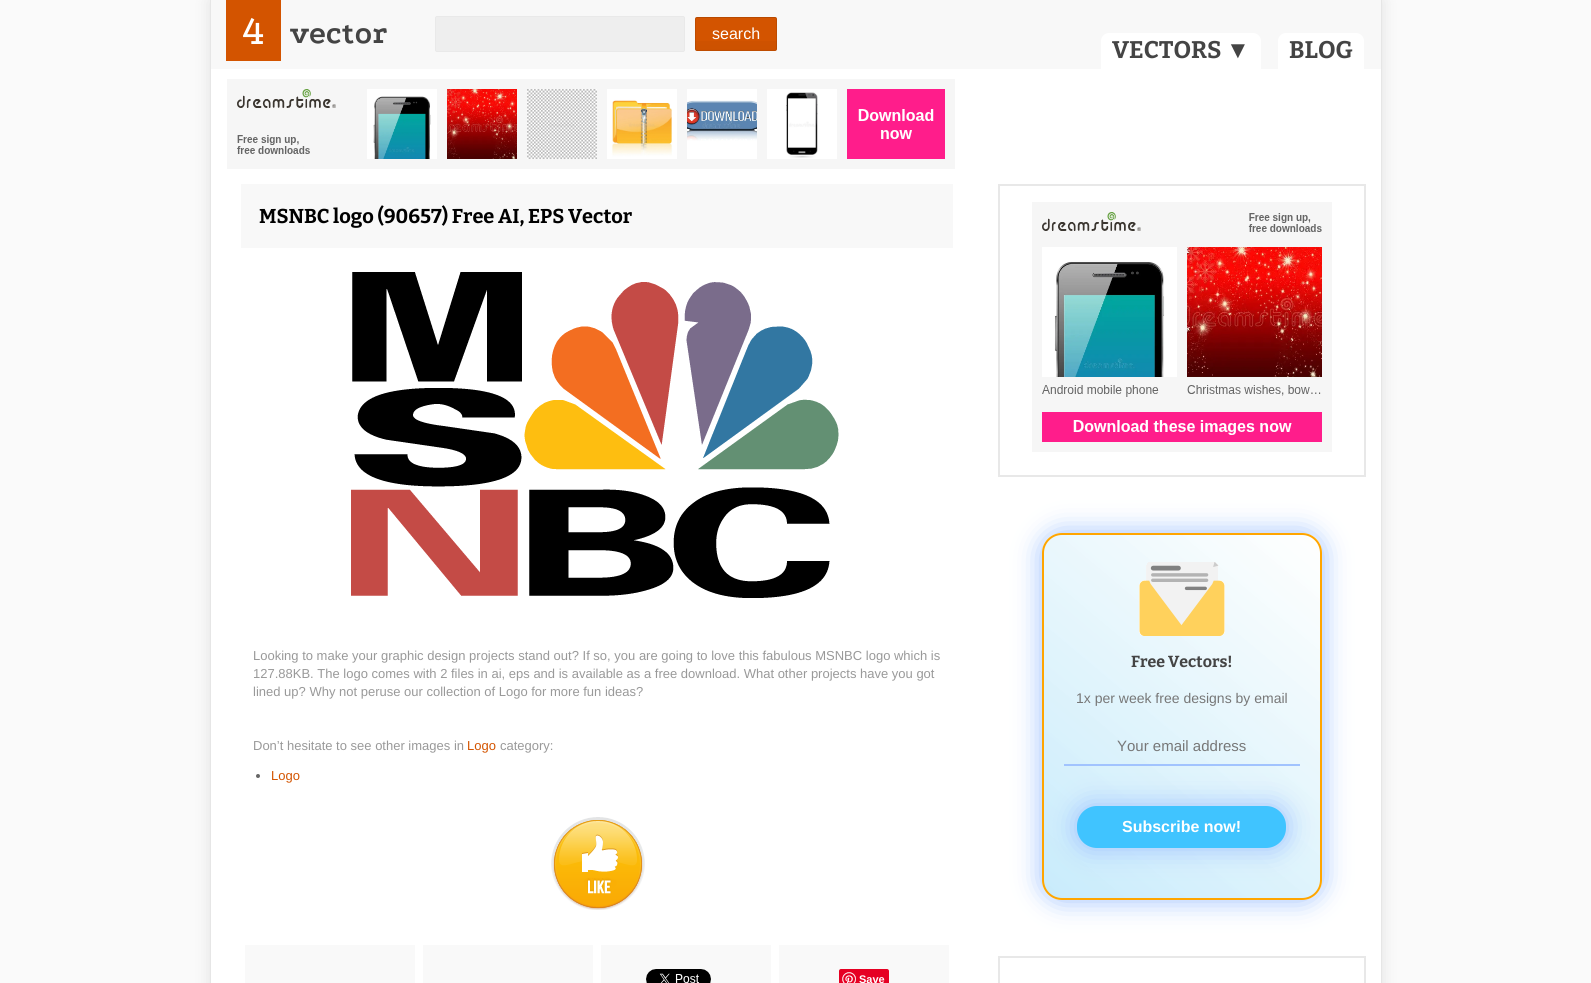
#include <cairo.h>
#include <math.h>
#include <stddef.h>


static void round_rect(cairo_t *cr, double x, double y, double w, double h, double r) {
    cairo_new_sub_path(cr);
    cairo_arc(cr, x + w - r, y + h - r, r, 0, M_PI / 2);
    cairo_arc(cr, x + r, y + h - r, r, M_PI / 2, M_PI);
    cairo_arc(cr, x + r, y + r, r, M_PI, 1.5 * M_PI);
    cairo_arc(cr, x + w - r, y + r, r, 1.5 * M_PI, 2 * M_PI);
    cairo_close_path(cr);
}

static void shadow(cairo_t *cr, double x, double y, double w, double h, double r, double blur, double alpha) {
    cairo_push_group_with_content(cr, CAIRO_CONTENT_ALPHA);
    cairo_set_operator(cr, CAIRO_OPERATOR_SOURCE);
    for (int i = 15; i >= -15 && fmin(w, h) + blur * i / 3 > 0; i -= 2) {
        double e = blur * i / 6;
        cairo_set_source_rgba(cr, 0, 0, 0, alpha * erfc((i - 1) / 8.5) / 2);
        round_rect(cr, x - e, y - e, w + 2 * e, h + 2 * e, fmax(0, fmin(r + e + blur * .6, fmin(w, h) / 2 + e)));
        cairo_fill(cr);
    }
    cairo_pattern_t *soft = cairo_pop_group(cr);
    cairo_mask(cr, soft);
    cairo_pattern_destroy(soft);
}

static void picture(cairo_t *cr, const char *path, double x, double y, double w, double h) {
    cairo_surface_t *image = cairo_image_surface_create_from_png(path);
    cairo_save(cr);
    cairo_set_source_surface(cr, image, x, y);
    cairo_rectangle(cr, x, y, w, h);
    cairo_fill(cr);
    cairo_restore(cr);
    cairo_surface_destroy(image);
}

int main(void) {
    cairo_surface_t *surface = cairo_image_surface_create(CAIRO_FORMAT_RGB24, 1591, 983);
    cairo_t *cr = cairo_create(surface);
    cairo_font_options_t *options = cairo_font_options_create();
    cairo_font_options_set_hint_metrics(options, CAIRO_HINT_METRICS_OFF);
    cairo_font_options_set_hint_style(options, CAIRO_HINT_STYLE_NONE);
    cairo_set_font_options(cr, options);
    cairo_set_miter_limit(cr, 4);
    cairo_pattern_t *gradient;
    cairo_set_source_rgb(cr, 0.98, 0.98, 0.98);
    cairo_paint(cr);
    cairo_set_source_rgb(cr, 0, 0, 0);
    shadow(cr, 210, 1, 1172, 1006, 0, 8, 0.1);
    cairo_set_source_rgb(cr, 1, 1, 1);
    cairo_rectangle(cr, 211, 69, 1170, 914);
    cairo_fill(cr);
    cairo_set_source_rgb(cr, 0.902, 0.902, 0.902);
    cairo_rectangle(cr, 1381, 0, 1, 983);
    cairo_fill(cr);
    cairo_rectangle(cr, 210, 0, 1, 983);
    cairo_fill(cr);
    cairo_set_source_rgb(cr, 0.969, 0.969, 0.969);
    cairo_rectangle(cr, 211, 0, 1170, 69);
    cairo_fill(cr);
    cairo_set_source_rgb(cr, 0.827, 0.329, 0);
    cairo_rectangle(cr, 226, 0, 55, 61);
    cairo_fill(cr);
    cairo_select_font_face(cr, "Podkova", CAIRO_FONT_SLANT_NORMAL, CAIRO_FONT_WEIGHT_NORMAL);
    cairo_set_font_size(cr, 42);
    cairo_set_source_rgb(cr, 1, 1, 1);
    cairo_move_to(cr, 242, 44);
    cairo_show_text(cr, "4");
    cairo_select_font_face(cr, "Podkova", CAIRO_FONT_SLANT_NORMAL, CAIRO_FONT_WEIGHT_BOLD);
    cairo_set_font_size(cr, 32);
    cairo_set_source_rgb(cr, 0.267, 0.267, 0.267);
    cairo_move_to(cr, 290, 43);
    cairo_show_text(cr, "vector");
    cairo_set_source_rgb(cr, 0.933, 0.933, 0.933);
    round_rect(cr, 435.5, 16.5, 249, 35, 1.5);
    cairo_fill_preserve(cr);
    cairo_set_source_rgb(cr, 0.914, 0.914, 0.914);
    cairo_set_line_width(cr, 1);
    cairo_stroke(cr);
    cairo_set_source_rgb(cr, 0.827, 0.329, 0);
    round_rect(cr, 695, 17, 82, 34, 2);
    cairo_fill(cr);
    gradient = cairo_pattern_create_linear(736, -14, 736, 18);
    cairo_pattern_add_color_stop_rgba(gradient, 0, 0, 0, 0, 0);
    cairo_pattern_add_color_stop_rgba(gradient, 1, 0, 0, 0, 0.03);
    cairo_set_source(cr, gradient);
    cairo_pattern_destroy(gradient);
    cairo_rectangle(cr, 695, 17, 82, 1);
    cairo_fill(cr);
    gradient = cairo_pattern_create_linear(736, 18, 736, 50);
    cairo_pattern_add_color_stop_rgba(gradient, 0, 0, 0, 0, 0);
    cairo_pattern_add_color_stop_rgba(gradient, 1, 0, 0, 0, 0.03);
    cairo_set_source(cr, gradient);
    cairo_pattern_destroy(gradient);
    cairo_rectangle(cr, 695, 41, 82, 9);
    cairo_fill(cr);
    round_rect(cr, 695.5, 17.5, 81, 33, 1.5);
    cairo_set_source_rgba(cr, 0, 0, 0, 0.1);
    cairo_stroke(cr);
    cairo_select_font_face(cr, "Liberation Sans", CAIRO_FONT_SLANT_NORMAL, CAIRO_FONT_WEIGHT_NORMAL);
    cairo_set_font_size(cr, 16);
    cairo_set_source_rgb(cr, 1, 1, 1);
    cairo_move_to(cr, 712, 39);
    cairo_show_text(cr, "search");
    cairo_new_path(cr);
    cairo_move_to(cr, 1109, 33);
    cairo_line_to(cr, 1253, 33);
    cairo_curve_to(cr, 1257.5, 33, 1261, 36.5, 1261, 41);
    cairo_line_to(cr, 1261, 69);
    cairo_line_to(cr, 1101, 69);
    cairo_line_to(cr, 1101, 41);
    cairo_curve_to(cr, 1101, 36.5, 1104.5, 33, 1109, 33);
    cairo_close_path(cr);
    cairo_fill(cr);
    cairo_select_font_face(cr, "Bitter", CAIRO_FONT_SLANT_NORMAL, CAIRO_FONT_WEIGHT_BOLD);
    cairo_set_font_size(cr, 24);
    cairo_set_source_rgb(cr, 0.267, 0.267, 0.267);
    cairo_move_to(cr, 1112, 58);
    cairo_show_text(cr, "VECTORS");
    cairo_select_font_face(cr, "Liberation Serif", CAIRO_FONT_SLANT_NORMAL, CAIRO_FONT_WEIGHT_BOLD);
    cairo_move_to(cr, 1226, 58);
    cairo_show_text(cr, "▼");
    cairo_set_source_rgb(cr, 1, 1, 1);
    cairo_new_path(cr);
    cairo_move_to(cr, 1286, 33);
    cairo_line_to(cr, 1356, 33);
    cairo_curve_to(cr, 1360.5, 33, 1364, 36.5, 1364, 41);
    cairo_line_to(cr, 1364, 69);
    cairo_line_to(cr, 1278, 69);
    cairo_line_to(cr, 1278, 41);
    cairo_curve_to(cr, 1278, 36.5, 1281.5, 33, 1286, 33);
    cairo_close_path(cr);
    cairo_fill(cr);
    cairo_select_font_face(cr, "Bitter", CAIRO_FONT_SLANT_NORMAL, CAIRO_FONT_WEIGHT_BOLD);
    cairo_set_source_rgb(cr, 0.267, 0.267, 0.267);
    cairo_move_to(cr, 1289, 58);
    cairo_show_text(cr, "BLOG");
    picture(cr, "img1.png", 227, 79, 728, 90);
    cairo_set_source_rgb(cr, 0.969, 0.969, 0.969);
    cairo_rectangle(cr, 241, 184, 712, 64);
    cairo_fill(cr);
    cairo_set_font_size(cr, 20);
    cairo_set_source_rgb(cr, 0, 0, 0);
    cairo_move_to(cr, 259, 223);
    cairo_show_text(cr, "MSNBC logo (90657) Free AI, EPS Vector");
    picture(cr, "img2.png", 351, 272, 488, 326);
    cairo_select_font_face(cr, "Liberation Sans", CAIRO_FONT_SLANT_NORMAL, CAIRO_FONT_WEIGHT_NORMAL);
    cairo_set_font_size(cr, 13);
    cairo_set_source_rgb(cr, 0.6, 0.6, 0.6);
    cairo_move_to(cr, 253, 660);
    cairo_show_text(cr, "Looking to make your graphic design projects stand out? If so, you are going to love this fabulous MSNBC logo which is");
    cairo_move_to(cr, 253, 678);
    cairo_show_text(cr, "127.88KB. The logo comes with 2 files in ai, eps and is available as a free download. What other projects have you got");
    cairo_move_to(cr, 253, 696);
    cairo_show_text(cr, "lined up? Why not peruse our collection of Logo for more fun ideas?");
    cairo_move_to(cr, 253, 750);
    cairo_show_text(cr, "Don’t hesitate to see other images in");
    cairo_set_source_rgb(cr, 0.827, 0.329, 0);
    cairo_move_to(cr, 467, 750);
    cairo_show_text(cr, "Logo");
    cairo_set_source_rgb(cr, 0.6, 0.6, 0.6);
    cairo_move_to(cr, 500, 750);
    cairo_show_text(cr, "category:");
    cairo_set_source_rgb(cr, 0.4, 0.4, 0.4);
    cairo_new_path(cr);
    cairo_arc(cr, 258, 776, 2, 0, 2 * M_PI);
    cairo_fill(cr);
    cairo_set_source_rgb(cr, 0.827, 0.329, 0);
    cairo_move_to(cr, 271, 780);
    cairo_show_text(cr, "Logo");
    picture(cr, "img3.png", 551, 817, 94, 93);
    cairo_set_source_rgb(cr, 0.976, 0.976, 0.976);
    cairo_rectangle(cr, 245, 945, 170, 38);
    cairo_fill(cr);
    cairo_rectangle(cr, 423, 945, 170, 38);
    cairo_fill(cr);
    cairo_rectangle(cr, 601, 945, 170, 38);
    cairo_fill(cr);
    picture(cr, "img4.png", 646, 969, 65, 14);
    cairo_rectangle(cr, 779, 945, 170, 38);
    cairo_fill(cr);
    cairo_set_source_rgb(cr, 0.902, 0, 0.137);
    round_rect(cr, 839, 969, 50, 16, 2);
    cairo_fill(cr);
    picture(cr, "img5.png", 842, 972, 14, 11);
    cairo_select_font_face(cr, "Liberation Sans", CAIRO_FONT_SLANT_NORMAL, CAIRO_FONT_WEIGHT_BOLD);
    cairo_set_font_size(cr, 11);
    cairo_set_source_rgb(cr, 1, 1, 1);
    cairo_move_to(cr, 859, 983);
    cairo_show_text(cr, "Save");
    cairo_rectangle(cr, 999, 185, 366, 291);
    cairo_set_source_rgb(cr, 0.91, 0.91, 0.91);
    cairo_set_line_width(cr, 2);
    cairo_stroke(cr);
    picture(cr, "img6.png", 1032, 202, 300, 250);
    cairo_set_source_rgb(cr, 0.631, 0.765, 0.996);
    shadow(cr, 1041, 532, 282, 369, 21, 13, 1);
    cairo_set_source_rgb(cr, 1, 1, 0.878);
    round_rect(cr, 1042, 533, 280, 367, 20);
    cairo_fill(cr);
    cairo_save(cr);
    round_rect(cr, 1042, 533, 280, 367, 20);
    cairo_clip(cr);
    gradient = cairo_pattern_create_linear(1328, 542, 1006, 926);
    cairo_pattern_add_color_stop_rgba(gradient, 0, 1, 1, 1, 0.95);
    cairo_pattern_add_color_stop_rgba(gradient, 1, 0.761, 0.914, 0.984, 1);
    cairo_set_source(cr, gradient);
    cairo_pattern_destroy(gradient);
    cairo_rectangle(cr, 1044, 535, 276, 363);
    cairo_fill(cr);
    cairo_restore(cr);
    round_rect(cr, 1043, 534, 278, 365, 19);
    cairo_set_source_rgb(cr, 1, 0.647, 0);
    cairo_stroke(cr);
    picture(cr, "img7.png", 1139, 562, 86, 74);
    cairo_select_font_face(cr, "Bitter", CAIRO_FONT_SLANT_NORMAL, CAIRO_FONT_WEIGHT_BOLD);
    cairo_set_font_size(cr, 16);
    cairo_set_source_rgb(cr, 0.267, 0.267, 0.267);
    cairo_move_to(cr, 1131, 667);
    cairo_show_text(cr, "Free Vectors!");
    cairo_select_font_face(cr, "Liberation Sans", CAIRO_FONT_SLANT_NORMAL, CAIRO_FONT_WEIGHT_NORMAL);
    cairo_set_font_size(cr, 14);
    cairo_set_source_rgb(cr, 0.467, 0.467, 0.467);
    cairo_move_to(cr, 1076, 703);
    cairo_show_text(cr, "1x per week free designs by email");
    cairo_set_source_rgb(cr, 0.631, 0.765, 0.996);
    cairo_rectangle(cr, 1064, 764, 236, 2);
    cairo_fill(cr);
    cairo_set_font_size(cr, 15);
    cairo_set_source_rgb(cr, 0.467, 0.467, 0.467);
    cairo_move_to(cr, 1117, 751);
    cairo_show_text(cr, "Your email address");
    cairo_set_source_rgb(cr, 0.631, 0.765, 0.996);
    shadow(cr, 1076, 805, 211, 44, 21, 13, 1);
    cairo_set_source_rgb(cr, 0.251, 0.769, 1);
    round_rect(cr, 1077, 806, 209, 42, 20);
    cairo_fill(cr);
    cairo_select_font_face(cr, "Liberation Sans", CAIRO_FONT_SLANT_NORMAL, CAIRO_FONT_WEIGHT_BOLD);
    cairo_set_font_size(cr, 16);
    cairo_set_source_rgb(cr, 1, 1, 1);
    cairo_move_to(cr, 1122, 832);
    cairo_show_text(cr, "Subscribe now!");
    cairo_rectangle(cr, 999, 957, 366, 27);
    cairo_set_source_rgb(cr, 0.91, 0.91, 0.91);
    cairo_stroke(cr);
    cairo_surface_write_to_png(surface, "page.png");
    cairo_font_options_destroy(options);
    cairo_destroy(cr);
    cairo_surface_destroy(surface);
    return 0;
}
